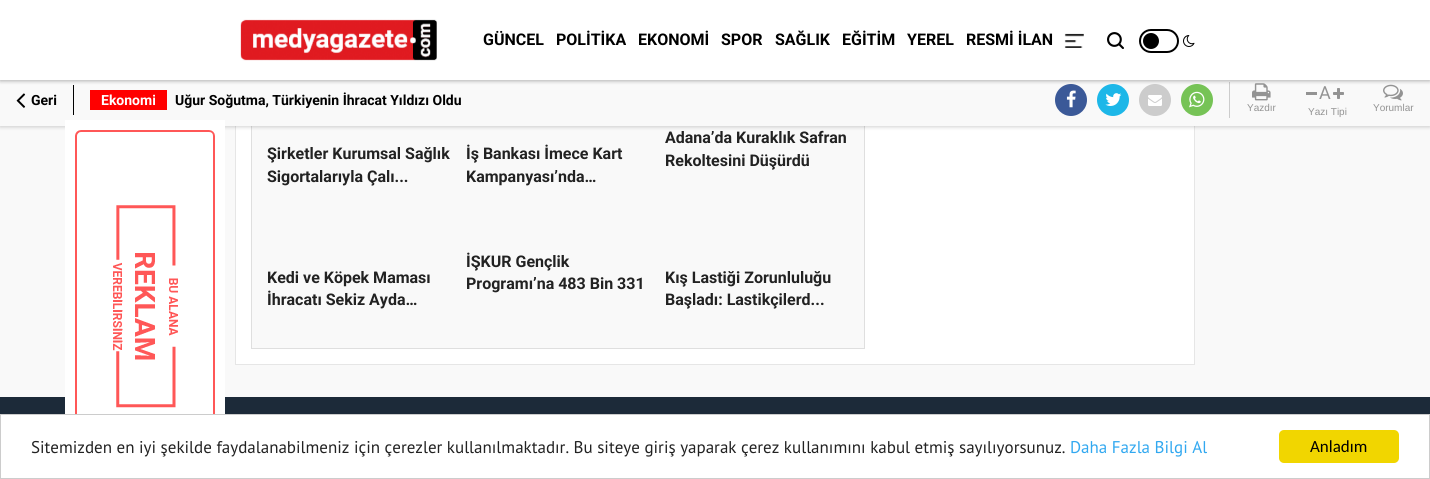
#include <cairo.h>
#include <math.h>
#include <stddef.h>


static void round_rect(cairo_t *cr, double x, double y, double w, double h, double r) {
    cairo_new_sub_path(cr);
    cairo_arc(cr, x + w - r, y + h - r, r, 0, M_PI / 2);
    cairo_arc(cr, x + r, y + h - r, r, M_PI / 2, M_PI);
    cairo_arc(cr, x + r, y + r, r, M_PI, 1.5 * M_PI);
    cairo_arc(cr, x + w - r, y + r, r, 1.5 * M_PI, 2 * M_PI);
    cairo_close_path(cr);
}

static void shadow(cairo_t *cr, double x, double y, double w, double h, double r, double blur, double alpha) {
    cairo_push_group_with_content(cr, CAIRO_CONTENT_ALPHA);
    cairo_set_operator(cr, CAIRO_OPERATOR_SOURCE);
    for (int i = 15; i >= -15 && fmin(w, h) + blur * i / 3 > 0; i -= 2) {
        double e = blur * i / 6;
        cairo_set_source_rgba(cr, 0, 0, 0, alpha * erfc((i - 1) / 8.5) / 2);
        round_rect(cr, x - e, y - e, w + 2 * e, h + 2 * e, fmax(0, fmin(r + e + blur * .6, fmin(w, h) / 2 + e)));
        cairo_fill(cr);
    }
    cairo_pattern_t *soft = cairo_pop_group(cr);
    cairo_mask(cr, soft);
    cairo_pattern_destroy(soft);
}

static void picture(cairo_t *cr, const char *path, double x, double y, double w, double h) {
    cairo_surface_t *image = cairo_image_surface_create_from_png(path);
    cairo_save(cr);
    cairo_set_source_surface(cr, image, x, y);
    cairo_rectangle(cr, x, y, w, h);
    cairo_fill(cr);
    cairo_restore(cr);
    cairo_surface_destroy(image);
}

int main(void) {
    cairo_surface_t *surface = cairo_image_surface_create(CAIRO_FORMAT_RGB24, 1430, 479);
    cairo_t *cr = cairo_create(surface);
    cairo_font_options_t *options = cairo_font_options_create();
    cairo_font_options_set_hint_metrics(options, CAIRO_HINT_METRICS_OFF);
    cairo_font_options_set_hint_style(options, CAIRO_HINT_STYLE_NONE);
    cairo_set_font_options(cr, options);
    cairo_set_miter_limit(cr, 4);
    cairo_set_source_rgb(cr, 0.976, 0.976, 0.976);
    cairo_paint(cr);
    cairo_set_source_rgb(cr, 1, 1, 1);
    cairo_rectangle(cr, 236, 126, 958, 238);
    cairo_fill(cr);
    cairo_rectangle(cr, 235.5, -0.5, 959, 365);
    cairo_set_source_rgb(cr, 0.902, 0.902, 0.902);
    cairo_set_line_width(cr, 1);
    cairo_stroke(cr);
    cairo_set_source_rgb(cr, 0.973, 0.973, 0.973);
    cairo_rectangle(cr, 252, 126, 612, 222);
    cairo_fill(cr);
    cairo_rectangle(cr, 251.5, -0.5, 613, 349);
    cairo_set_source_rgb(cr, 0.875, 0.875, 0.875);
    cairo_stroke(cr);
    cairo_set_source_rgb(cr, 0, 0, 0);
    shadow(cr, 0, 71, 1430, 56, 0, 2, 0.19);
    cairo_set_source_rgb(cr, 0.973, 0.973, 0.973);
    cairo_rectangle(cr, 0, 80, 1430, 46);
    cairo_fill(cr);
    cairo_set_source_rgb(cr, 0, 0, 0);
    cairo_rectangle(cr, 73, 85, 1, 30);
    cairo_fill(cr);
    cairo_set_source_rgb(cr, 0.231, 0.349, 0.596);
    cairo_arc(cr, 1071, 100, 16, 0, 2 * M_PI);
    cairo_fill(cr);
    cairo_set_source_rgb(cr, 0.114, 0.718, 0.91);
    cairo_arc(cr, 1113, 100, 16, 0, 2 * M_PI);
    cairo_fill(cr);
    cairo_set_source_rgb(cr, 0.8, 0.8, 0.8);
    cairo_arc(cr, 1155, 100, 16, 0, 2 * M_PI);
    cairo_fill(cr);
    cairo_set_source_rgb(cr, 0.463, 0.765, 0.337);
    cairo_arc(cr, 1197, 100, 16, 0, 2 * M_PI);
    cairo_fill(cr);
    cairo_set_source_rgb(cr, 0.8, 0.8, 0.8);
    cairo_rectangle(cr, 1229, 82, 1, 36);
    cairo_fill(cr);
    picture(cr, "img10.png", 1252, 83, 19, 18);
    picture(cr, "img12.png", 1383, 84, 20, 17);
    cairo_set_source_rgb(cr, 0, 0, 0);
    shadow(cr, 0, 1, 1430, 80, 0, 2, 0.3);
    cairo_set_source_rgb(cr, 1, 1, 1);
    cairo_rectangle(cr, 0, 0, 1430, 80);
    cairo_fill(cr);
    picture(cr, "img1.png", 240, 19, 197, 42);
    cairo_select_font_face(cr, "Roboto", CAIRO_FONT_SLANT_NORMAL, CAIRO_FONT_WEIGHT_BOLD);
    cairo_set_font_size(cr, 16);
    cairo_set_source_rgb(cr, 0, 0, 0);
    cairo_move_to(cr, 483, 45);
    cairo_show_text(cr, "GÜNCEL");
    cairo_move_to(cr, 556, 45);
    cairo_show_text(cr, "POLİTİKA");
    cairo_move_to(cr, 638, 45);
    cairo_show_text(cr, "EKONOMİ");
    cairo_move_to(cr, 721, 45);
    cairo_show_text(cr, "SPOR");
    cairo_move_to(cr, 775, 45);
    cairo_show_text(cr, "SAĞLIK");
    cairo_move_to(cr, 842, 45);
    cairo_show_text(cr, "EĞİTİM");
    cairo_move_to(cr, 907, 45);
    cairo_show_text(cr, "YEREL");
    cairo_move_to(cr, 966, 45);
    cairo_show_text(cr, "RESMİ İLAN");
    picture(cr, "img2.png", 1064, 33, 20, 15);
    picture(cr, "img3.png", 1107, 32, 17, 17);
    round_rect(cr, 1140, 30, 38, 22, 11);
    cairo_set_line_width(cr, 2);
    cairo_stroke(cr);
    cairo_arc(cr, 1151, 41, 8, 0, 2 * M_PI);
    cairo_fill(cr);
    picture(cr, "img4.png", 1183, 35, 12, 12);
    picture(cr, "img5.png", 16, 93, 10, 15);
    cairo_set_font_size(cr, 14);
    cairo_move_to(cr, 31, 105);
    cairo_show_text(cr, "Geri");
    cairo_set_source_rgb(cr, 1, 0, 0);
    cairo_rectangle(cr, 90, 90, 77, 20);
    cairo_fill(cr);
    cairo_set_source_rgb(cr, 1, 1, 1);
    cairo_move_to(cr, 101, 105);
    cairo_show_text(cr, "Ekonomi");
    cairo_set_source_rgb(cr, 0, 0, 0);
    cairo_move_to(cr, 175, 105);
    cairo_show_text(cr, "Uğur Soğutma, Türkiyenin İhracat Yıldızı Oldu");
    picture(cr, "img6.png", 1066, 90, 10, 18);
    picture(cr, "img7.png", 1105, 93, 17, 13);
    picture(cr, "img8.png", 1148, 95, 14, 11);
    picture(cr, "img9.png", 1189, 91, 16, 17);
    cairo_select_font_face(cr, "Liberation Sans", CAIRO_FONT_SLANT_NORMAL, CAIRO_FONT_WEIGHT_NORMAL);
    cairo_set_font_size(cr, 10);
    cairo_set_source_rgb(cr, 0.576, 0.576, 0.576);
    cairo_move_to(cr, 1247, 111);
    cairo_show_text(cr, "Yazdır");
    cairo_rectangle(cr, 1306, 92, 11, 3);
    cairo_fill(cr);
    cairo_select_font_face(cr, "Roboto", CAIRO_FONT_SLANT_NORMAL, CAIRO_FONT_WEIGHT_NORMAL);
    cairo_set_font_size(cr, 18);
    cairo_move_to(cr, 1319, 99);
    cairo_show_text(cr, "A");
    picture(cr, "img11.png", 1333, 88, 11, 11);
    cairo_select_font_face(cr, "Liberation Sans", CAIRO_FONT_SLANT_NORMAL, CAIRO_FONT_WEIGHT_NORMAL);
    cairo_set_font_size(cr, 10);
    cairo_move_to(cr, 1308, 115);
    cairo_show_text(cr, "Yazı Tipi");
    cairo_move_to(cr, 1373, 111);
    cairo_show_text(cr, "Yorumlar");
    cairo_select_font_face(cr, "Roboto", CAIRO_FONT_SLANT_NORMAL, CAIRO_FONT_WEIGHT_BOLD);
    cairo_set_font_size(cr, 16);
    cairo_set_source_rgb(cr, 0.133, 0.133, 0.133);
    cairo_move_to(cr, 267, 159);
    cairo_show_text(cr, "Şirketler Kurumsal Sağlık");
    cairo_move_to(cr, 267, 182);
    cairo_show_text(cr, "Sigortalarıyla Çalı...");
    cairo_move_to(cr, 466, 159);
    cairo_show_text(cr, "İş Bankası İmece Kart");
    cairo_move_to(cr, 466, 182);
    cairo_show_text(cr, "Kampanyası’nda…");
    cairo_move_to(cr, 665, 143);
    cairo_show_text(cr, "Adana’da Kuraklık Safran");
    cairo_move_to(cr, 665, 166);
    cairo_show_text(cr, "Rekoltesini Düşürdü");
    cairo_move_to(cr, 267, 283);
    cairo_show_text(cr, "Kedi ve Köpek Maması");
    cairo_move_to(cr, 267, 305);
    cairo_show_text(cr, "İhracatı Sekiz Ayda…");
    cairo_move_to(cr, 466, 267);
    cairo_show_text(cr, "İŞKUR Gençlik");
    cairo_move_to(cr, 466, 289);
    cairo_show_text(cr, "Programı’na 483 Bin 331");
    cairo_move_to(cr, 665, 283);
    cairo_show_text(cr, "Kış Lastiği Zorunluluğu");
    cairo_move_to(cr, 665, 305);
    cairo_show_text(cr, "Başladı: Lastikçilerd...");
    cairo_set_source_rgb(cr, 0.11, 0.165, 0.224);
    cairo_rectangle(cr, 0, 397, 1430, 17);
    cairo_fill(cr);
    picture(cr, "img13.png", 65, 120, 160, 294);
    cairo_set_source_rgb(cr, 1, 1, 1);
    cairo_rectangle(cr, 0.5, 414.5, 1429, 64);
    cairo_fill_preserve(cr);
    cairo_set_source_rgb(cr, 0.8, 0.8, 0.8);
    cairo_set_line_width(cr, 1);
    cairo_stroke(cr);
    cairo_select_font_face(cr, "PT Sans", CAIRO_FONT_SLANT_NORMAL, CAIRO_FONT_WEIGHT_NORMAL);
    cairo_set_font_size(cr, 17);
    cairo_set_source_rgb(cr, 0.133, 0.133, 0.133);
    cairo_move_to(cr, 31, 453);
    cairo_show_text(cr, "Sitemizden en iyi şekilde faydalanabilmeniz için çerezler kullanılmaktadır. Bu siteye giriş yaparak çerez kullanımını kabul etmiş sayılıyorsunuz.");
    cairo_set_source_rgb(cr, 0.192, 0.659, 0.941);
    cairo_move_to(cr, 1070, 453);
    cairo_show_text(cr, "Daha Fazla Bilgi Al");
    cairo_set_source_rgb(cr, 0.945, 0.839, 0);
    round_rect(cr, 1279, 430, 120, 33, 5);
    cairo_fill(cr);
    cairo_select_font_face(cr, "Carlito", CAIRO_FONT_SLANT_NORMAL, CAIRO_FONT_WEIGHT_NORMAL);
    cairo_set_source_rgb(cr, 0, 0, 0);
    cairo_move_to(cr, 1310, 452);
    cairo_show_text(cr, "Anladım");
    cairo_surface_write_to_png(surface, "page.png");
    cairo_font_options_destroy(options);
    cairo_destroy(cr);
    cairo_surface_destroy(surface);
    return 0;
}
